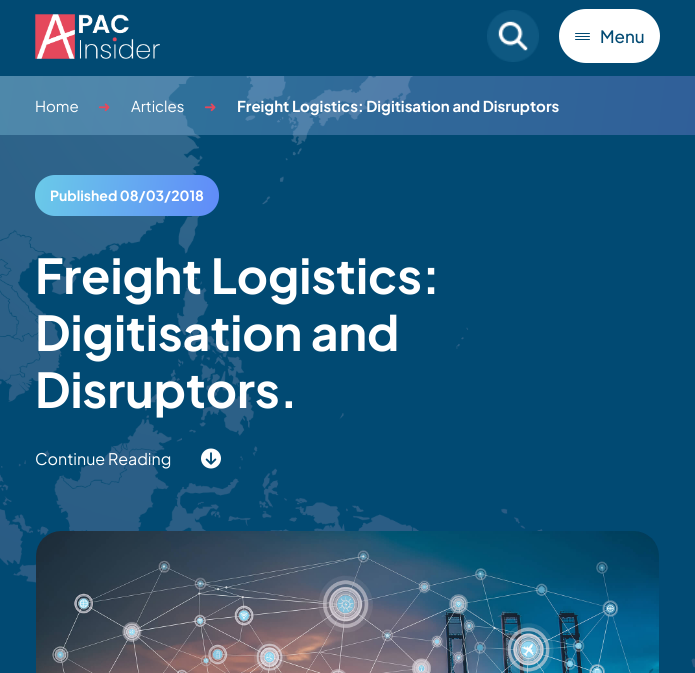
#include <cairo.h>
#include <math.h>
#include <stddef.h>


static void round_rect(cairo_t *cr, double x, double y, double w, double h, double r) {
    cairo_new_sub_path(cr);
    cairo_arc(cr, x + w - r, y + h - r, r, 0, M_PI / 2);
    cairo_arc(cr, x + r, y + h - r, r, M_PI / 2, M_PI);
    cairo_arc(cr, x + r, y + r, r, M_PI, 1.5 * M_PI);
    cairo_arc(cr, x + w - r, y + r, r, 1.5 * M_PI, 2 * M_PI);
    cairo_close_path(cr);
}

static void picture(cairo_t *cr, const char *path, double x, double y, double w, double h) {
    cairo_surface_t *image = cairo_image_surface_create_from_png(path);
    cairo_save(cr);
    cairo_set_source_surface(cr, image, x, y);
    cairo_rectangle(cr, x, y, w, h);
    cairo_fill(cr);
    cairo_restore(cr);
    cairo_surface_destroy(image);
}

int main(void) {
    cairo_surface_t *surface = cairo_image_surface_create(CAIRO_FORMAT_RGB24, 695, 673);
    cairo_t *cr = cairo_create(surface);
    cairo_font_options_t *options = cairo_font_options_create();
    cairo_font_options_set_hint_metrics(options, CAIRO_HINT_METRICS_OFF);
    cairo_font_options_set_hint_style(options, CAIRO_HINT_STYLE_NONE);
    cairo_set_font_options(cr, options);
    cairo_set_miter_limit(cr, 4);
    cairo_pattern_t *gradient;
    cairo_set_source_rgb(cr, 0.004, 0.29, 0.451);
    cairo_paint(cr);
    picture(cr, "img1.png", 35, 14, 125, 45);
    picture(cr, "img2.png", 487, 10, 52, 52);
    cairo_set_source_rgb(cr, 1, 1, 1);
    round_rect(cr, 559, 9, 101, 54, 27);
    cairo_fill(cr);
    cairo_set_source_rgb(cr, 0.004, 0.29, 0.451);
    round_rect(cr, 575, 33, 15, 1, 0.5);
    cairo_fill(cr);
    round_rect(cr, 575, 36, 15, 1, 0.5);
    cairo_fill(cr);
    round_rect(cr, 575, 39, 15, 1, 0.5);
    cairo_fill(cr);
    cairo_select_font_face(cr, "Plus Jakarta Sans Medium", CAIRO_FONT_SLANT_NORMAL, CAIRO_FONT_WEIGHT_NORMAL);
    cairo_set_font_size(cr, 17);
    cairo_move_to(cr, 600, 43);
    cairo_show_text(cr, "Menu");
    picture(cr, "img3.png", 0, 76, 695, 592);
    gradient = cairo_pattern_create_linear(2.7, 57, 692, 154);
    cairo_pattern_add_color_stop_rgba(gradient, 0, 0.427, 0.863, 1, 0.2);
    cairo_pattern_add_color_stop_rgba(gradient, 1, 0.498, 0.376, 0.976, 0.2);
    cairo_set_source(cr, gradient);
    cairo_pattern_destroy(gradient);
    cairo_rectangle(cr, 0, 76, 695, 59);
    cairo_fill(cr);
    cairo_set_source_rgba(cr, 1, 1, 1, 0.1);
    cairo_rectangle(cr, 0, 76, 695, 59);
    cairo_fill(cr);
    cairo_select_font_face(cr, "Plus Jakarta Sans", CAIRO_FONT_SLANT_NORMAL, CAIRO_FONT_WEIGHT_NORMAL);
    cairo_set_font_size(cr, 15);
    cairo_set_source_rgb(cr, 1, 1, 1);
    cairo_move_to(cr, 35, 112);
    cairo_show_text(cr, "Home");
    cairo_select_font_face(cr, "DejaVu Sans", CAIRO_FONT_SLANT_NORMAL, CAIRO_FONT_WEIGHT_NORMAL);
    cairo_set_source_rgb(cr, 0.898, 0.282, 0.361);
    cairo_move_to(cr, 98, 112);
    cairo_show_text(cr, "➜");
    cairo_select_font_face(cr, "Plus Jakarta Sans", CAIRO_FONT_SLANT_NORMAL, CAIRO_FONT_WEIGHT_NORMAL);
    cairo_set_source_rgb(cr, 1, 1, 1);
    cairo_move_to(cr, 131, 112);
    cairo_show_text(cr, "Articles");
    cairo_select_font_face(cr, "DejaVu Sans", CAIRO_FONT_SLANT_NORMAL, CAIRO_FONT_WEIGHT_NORMAL);
    cairo_set_source_rgb(cr, 0.898, 0.282, 0.361);
    cairo_move_to(cr, 204, 112);
    cairo_show_text(cr, "➜");
    cairo_select_font_face(cr, "Plus Jakarta Sans", CAIRO_FONT_SLANT_NORMAL, CAIRO_FONT_WEIGHT_BOLD);
    cairo_set_source_rgb(cr, 1, 1, 1);
    cairo_move_to(cr, 237, 112);
    cairo_show_text(cr, "Freight Logistics: Digitisation and Disruptors");
    gradient = cairo_pattern_create_linear(34, 182, 220, 209);
    cairo_pattern_add_color_stop_rgba(gradient, 0, 0.416, 0.792, 0.91, 1);
    cairo_pattern_add_color_stop_rgba(gradient, 1, 0.376, 0.545, 0.976, 1);
    cairo_set_source(cr, gradient);
    cairo_pattern_destroy(gradient);
    round_rect(cr, 35, 175, 184, 41, 20);
    cairo_fill(cr);
    cairo_set_font_size(cr, 14);
    cairo_set_source_rgb(cr, 1, 1, 1);
    cairo_move_to(cr, 50, 201);
    cairo_show_text(cr, "Published 08/03/2018");
    cairo_set_font_size(cr, 48);
    cairo_move_to(cr, 35, 294);
    cairo_show_text(cr, "Freight Logistics:");
    cairo_move_to(cr, 35, 351);
    cairo_show_text(cr, "Digitisation and");
    cairo_move_to(cr, 35, 408);
    cairo_show_text(cr, "Disruptors.");
    cairo_select_font_face(cr, "Plus Jakarta Sans", CAIRO_FONT_SLANT_NORMAL, CAIRO_FONT_WEIGHT_NORMAL);
    cairo_set_font_size(cr, 16);
    cairo_move_to(cr, 35, 465);
    cairo_show_text(cr, "Continue Reading");
    picture(cr, "img4.png", 201, 448, 20, 21);
    picture(cr, "img5.png", 36, 531, 623, 142);
    cairo_surface_write_to_png(surface, "page.png");
    cairo_font_options_destroy(options);
    cairo_destroy(cr);
    cairo_surface_destroy(surface);
    return 0;
}
